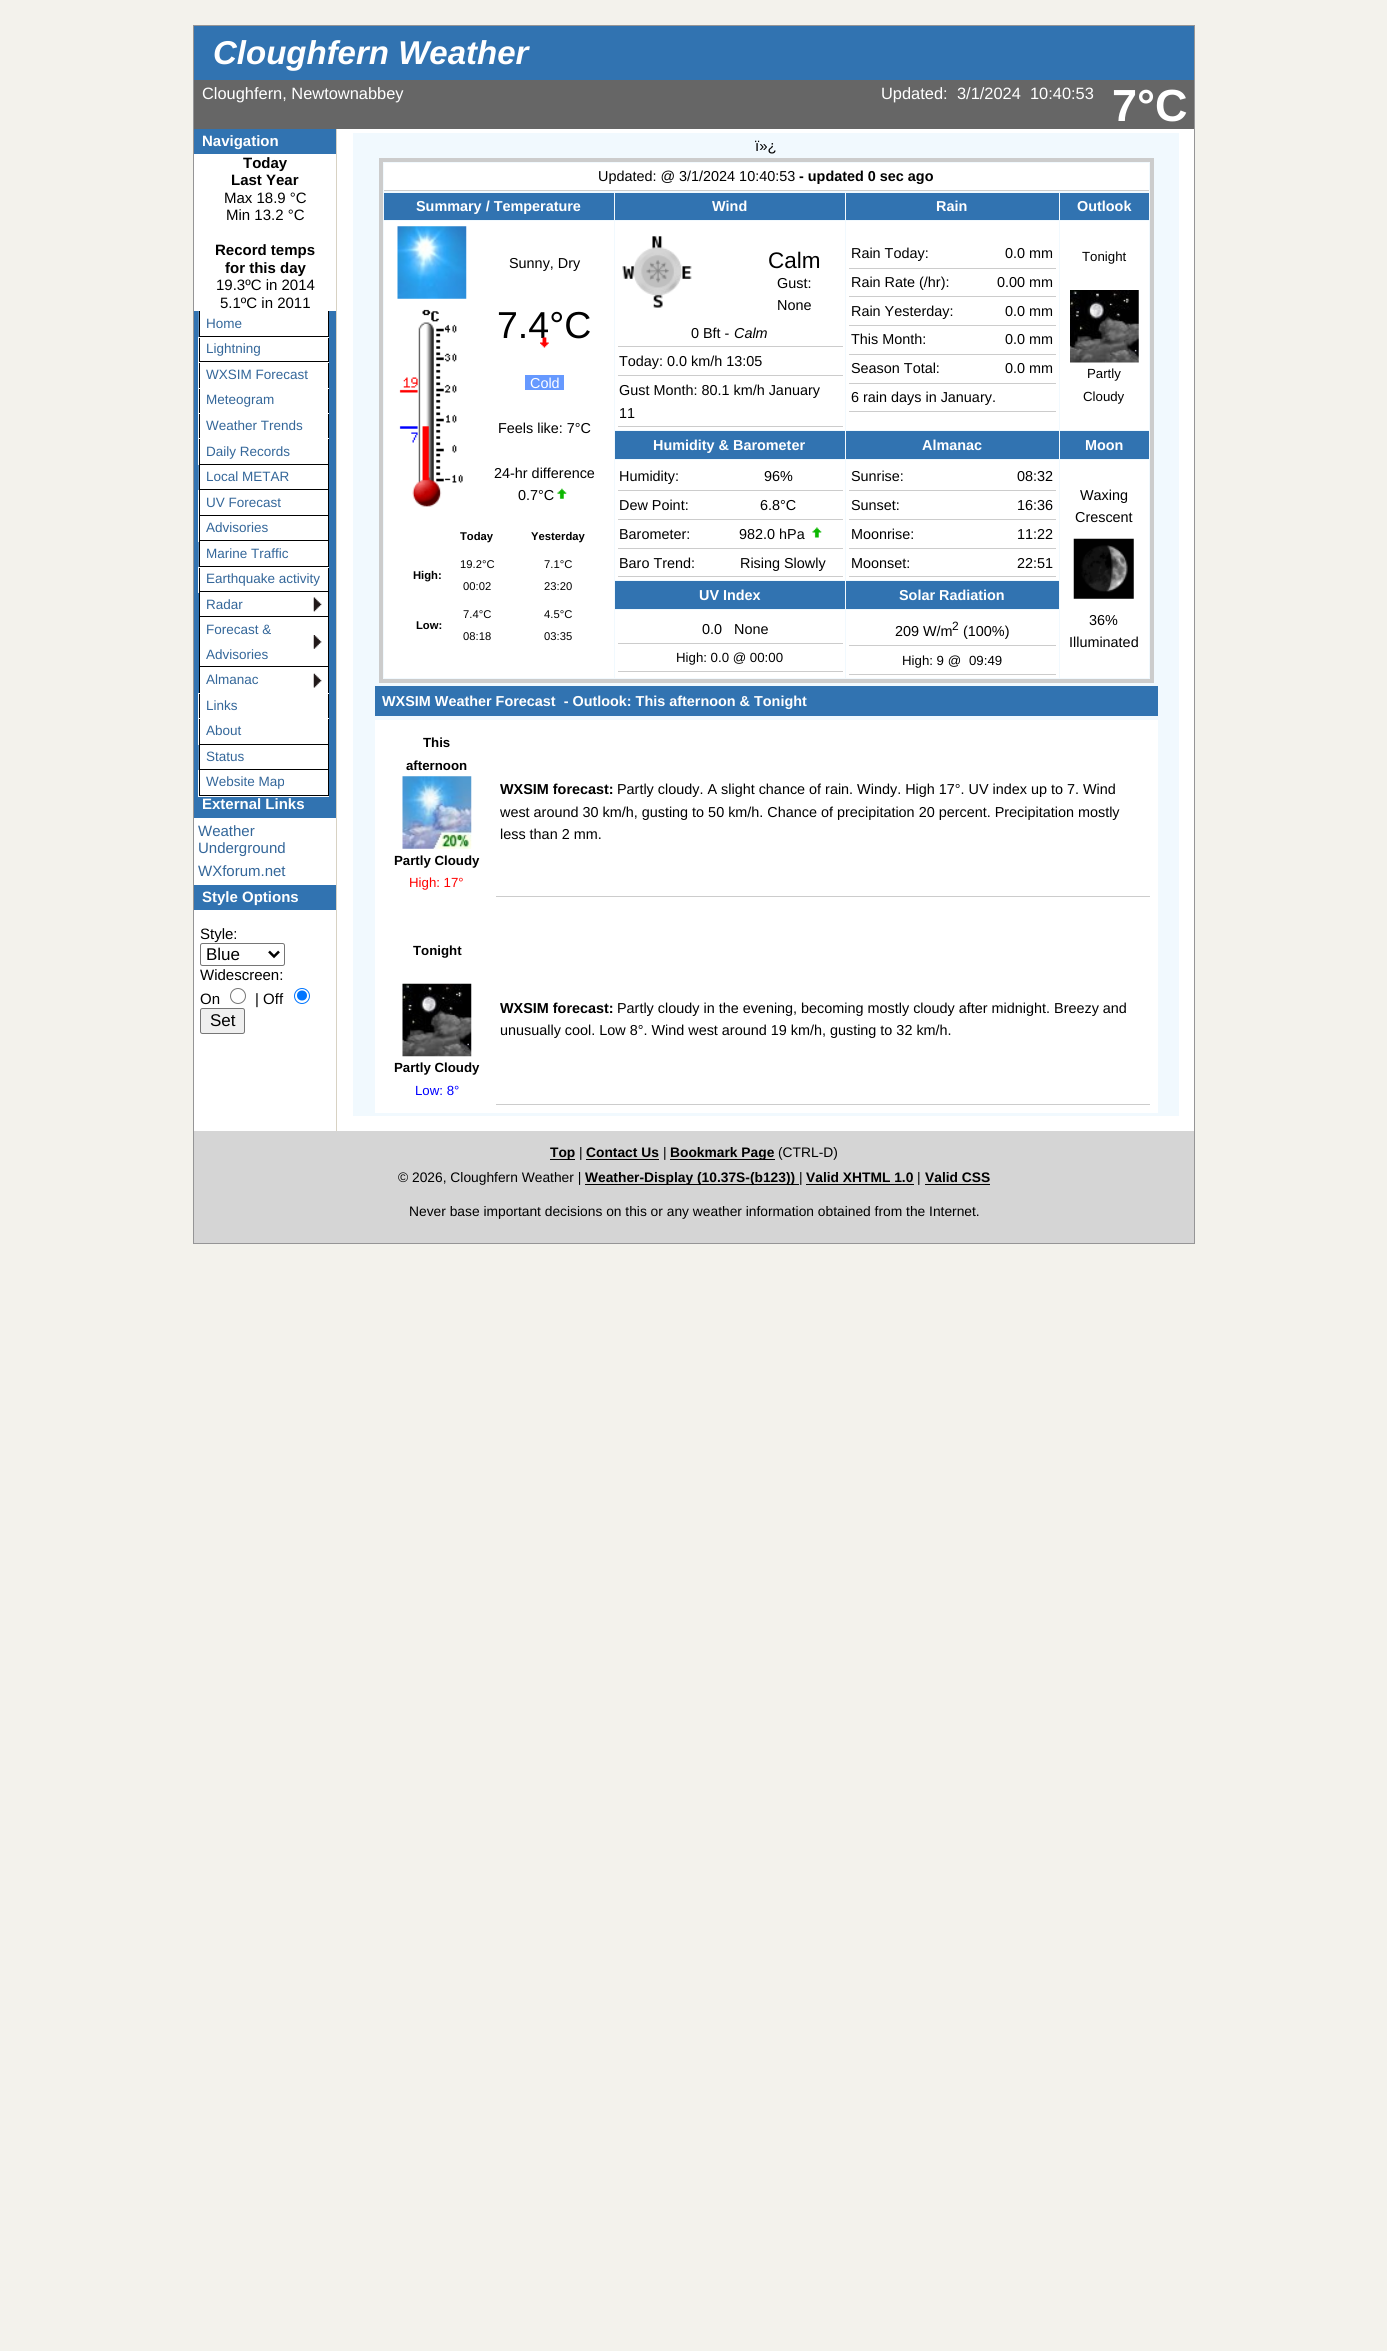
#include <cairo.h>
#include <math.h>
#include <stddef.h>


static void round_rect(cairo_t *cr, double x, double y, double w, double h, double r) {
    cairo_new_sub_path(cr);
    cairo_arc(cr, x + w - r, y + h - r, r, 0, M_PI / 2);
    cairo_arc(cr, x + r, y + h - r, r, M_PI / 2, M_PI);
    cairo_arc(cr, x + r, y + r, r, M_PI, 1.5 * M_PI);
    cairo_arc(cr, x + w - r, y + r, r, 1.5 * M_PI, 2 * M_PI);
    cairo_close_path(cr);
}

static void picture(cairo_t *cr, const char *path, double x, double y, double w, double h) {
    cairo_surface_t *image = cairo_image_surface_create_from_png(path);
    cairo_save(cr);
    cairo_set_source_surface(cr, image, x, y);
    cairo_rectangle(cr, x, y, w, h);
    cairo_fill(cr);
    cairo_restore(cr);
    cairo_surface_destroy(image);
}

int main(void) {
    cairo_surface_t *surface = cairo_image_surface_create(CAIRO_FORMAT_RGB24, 1387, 2351);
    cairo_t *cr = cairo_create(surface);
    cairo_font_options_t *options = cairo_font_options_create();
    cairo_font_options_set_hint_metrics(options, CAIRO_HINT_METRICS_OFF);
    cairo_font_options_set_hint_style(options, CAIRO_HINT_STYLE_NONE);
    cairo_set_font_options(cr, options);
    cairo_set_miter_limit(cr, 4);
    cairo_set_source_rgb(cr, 0.953, 0.949, 0.922);
    cairo_paint(cr);
    cairo_set_source_rgb(cr, 1, 1, 1);
    cairo_rectangle(cr, 194, 129, 1000, 1002);
    cairo_fill(cr);
    cairo_rectangle(cr, 193.5, 25.5, 1001, 1218);
    cairo_set_source_rgb(cr, 0.584, 0.584, 0.588);
    cairo_set_line_width(cr, 1);
    cairo_stroke(cr);
    cairo_set_source_rgb(cr, 0.192, 0.451, 0.694);
    cairo_rectangle(cr, 194, 26, 1000, 54);
    cairo_fill(cr);
    cairo_select_font_face(cr, "Liberation Sans", CAIRO_FONT_SLANT_ITALIC, CAIRO_FONT_WEIGHT_BOLD);
    cairo_set_font_size(cr, 33);
    cairo_set_source_rgb(cr, 1, 1, 1);
    cairo_move_to(cr, 213, 64);
    cairo_show_text(cr, "Cloughfern Weather");
    cairo_set_source_rgb(cr, 0.4, 0.4, 0.4);
    cairo_rectangle(cr, 194, 80, 1000, 49);
    cairo_fill(cr);
    cairo_select_font_face(cr, "Liberation Sans", CAIRO_FONT_SLANT_NORMAL, CAIRO_FONT_WEIGHT_NORMAL);
    cairo_set_font_size(cr, 16.4);
    cairo_set_source_rgb(cr, 1, 1, 1);
    cairo_move_to(cr, 202, 99);
    cairo_show_text(cr, "Cloughfern, Newtownabbey");
    cairo_move_to(cr, 881, 99);
    cairo_show_text(cr, "Updated:");
    cairo_move_to(cr, 957, 99);
    cairo_show_text(cr, "3/1/2024");
    cairo_move_to(cr, 1030, 99);
    cairo_show_text(cr, "10:40:53");
    cairo_select_font_face(cr, "Liberation Sans", CAIRO_FONT_SLANT_NORMAL, CAIRO_FONT_WEIGHT_BOLD);
    cairo_set_font_size(cr, 45);
    cairo_move_to(cr, 1112, 121);
    cairo_show_text(cr, "7°C");
    cairo_set_source_rgb(cr, 0.192, 0.451, 0.694);
    cairo_rectangle(cr, 194, 129, 142, 25);
    cairo_fill(cr);
    cairo_set_font_size(cr, 15);
    cairo_set_source_rgb(cr, 1, 1, 1);
    cairo_move_to(cr, 202, 146);
    cairo_show_text(cr, "Navigation");
    cairo_set_source_rgb(cr, 0, 0, 0);
    cairo_move_to(cr, 243, 168);
    cairo_show_text(cr, "Today");
    cairo_move_to(cr, 231, 185);
    cairo_show_text(cr, "Last Year");
    cairo_select_font_face(cr, "Liberation Sans", CAIRO_FONT_SLANT_NORMAL, CAIRO_FONT_WEIGHT_NORMAL);
    cairo_move_to(cr, 224, 203);
    cairo_show_text(cr, "Max 18.9 °C");
    cairo_move_to(cr, 226, 220);
    cairo_show_text(cr, "Min 13.2 °C");
    cairo_select_font_face(cr, "Liberation Sans", CAIRO_FONT_SLANT_NORMAL, CAIRO_FONT_WEIGHT_BOLD);
    cairo_move_to(cr, 215, 255);
    cairo_show_text(cr, "Record temps");
    cairo_move_to(cr, 225, 273);
    cairo_show_text(cr, "for this day");
    cairo_select_font_face(cr, "Liberation Sans", CAIRO_FONT_SLANT_NORMAL, CAIRO_FONT_WEIGHT_NORMAL);
    cairo_move_to(cr, 216, 290);
    cairo_show_text(cr, "19.3ºC in 2014");
    cairo_move_to(cr, 220, 308);
    cairo_show_text(cr, "5.1ºC in 2011");
    cairo_set_source_rgb(cr, 0.192, 0.451, 0.694);
    cairo_rectangle(cr, 194, 311, 142, 507);
    cairo_fill(cr);
    cairo_set_source_rgb(cr, 1, 1, 1);
    cairo_rectangle(cr, 200, 311, 128, 25);
    cairo_fill(cr);
    picture(cr, "img1.png", 198, 311, 1, 26);
    cairo_set_source_rgb(cr, 0, 0, 0);
    cairo_rectangle(cr, 328, 311, 1, 27);
    cairo_fill(cr);
    cairo_rectangle(cr, 199, 336, 130, 1);
    cairo_fill(cr);
    cairo_rectangle(cr, 199, 311, 1, 27);
    cairo_fill(cr);
    cairo_set_font_size(cr, 13.5);
    cairo_set_source_rgb(cr, 0.2, 0.4, 0.6);
    cairo_move_to(cr, 206, 328);
    cairo_show_text(cr, "Home");
    cairo_set_source_rgb(cr, 1, 1, 1);
    cairo_rectangle(cr, 198, 337, 131, 25);
    cairo_fill(cr);
    cairo_set_source_rgb(cr, 0, 0, 0);
    cairo_rectangle(cr, 328, 338, 1, 25);
    cairo_fill(cr);
    cairo_rectangle(cr, 199, 361, 130, 1);
    cairo_fill(cr);
    cairo_rectangle(cr, 199, 338, 1, 25);
    cairo_fill(cr);
    cairo_set_source_rgb(cr, 0.2, 0.4, 0.6);
    cairo_move_to(cr, 206, 353);
    cairo_show_text(cr, "Lightning");
    cairo_set_source_rgb(cr, 1, 1, 1);
    cairo_rectangle(cr, 198, 362, 131, 26);
    cairo_fill(cr);
    cairo_set_source_rgb(cr, 0, 0, 0);
    cairo_rectangle(cr, 328, 363, 1, 26);
    cairo_fill(cr);
    cairo_rectangle(cr, 199, 363, 1, 26);
    cairo_fill(cr);
    cairo_set_source_rgb(cr, 0.2, 0.4, 0.6);
    cairo_move_to(cr, 206, 379);
    cairo_show_text(cr, "WXSIM Forecast");
    cairo_set_source_rgb(cr, 1, 1, 1);
    cairo_rectangle(cr, 198, 388, 131, 25);
    cairo_fill(cr);
    cairo_set_source_rgb(cr, 0, 0, 0);
    cairo_rectangle(cr, 328, 389, 1, 25);
    cairo_fill(cr);
    cairo_rectangle(cr, 199, 389, 1, 25);
    cairo_fill(cr);
    cairo_set_source_rgb(cr, 0.2, 0.4, 0.6);
    cairo_move_to(cr, 206, 404);
    cairo_show_text(cr, "Meteogram");
    cairo_set_source_rgb(cr, 1, 1, 1);
    cairo_rectangle(cr, 198, 413, 131, 25);
    cairo_fill(cr);
    cairo_set_source_rgb(cr, 0, 0, 0);
    cairo_rectangle(cr, 328, 414, 1, 25);
    cairo_fill(cr);
    cairo_rectangle(cr, 199, 414, 1, 25);
    cairo_fill(cr);
    cairo_set_source_rgb(cr, 0.2, 0.4, 0.6);
    cairo_move_to(cr, 206, 430);
    cairo_show_text(cr, "Weather Trends");
    cairo_set_source_rgb(cr, 1, 1, 1);
    cairo_rectangle(cr, 198, 438, 131, 27);
    cairo_fill(cr);
    cairo_set_source_rgb(cr, 0, 0, 0);
    cairo_rectangle(cr, 328, 439, 1, 129);
    cairo_fill(cr);
    cairo_rectangle(cr, 199, 464, 130, 1);
    cairo_fill(cr);
    cairo_rectangle(cr, 199, 439, 1, 26);
    cairo_fill(cr);
    cairo_set_source_rgb(cr, 0.2, 0.4, 0.6);
    cairo_move_to(cr, 206, 456);
    cairo_show_text(cr, "Daily Records");
    cairo_set_source_rgb(cr, 1, 1, 1);
    cairo_rectangle(cr, 200, 465, 128, 24);
    cairo_fill(cr);
    cairo_set_source_rgb(cr, 0.396, 0.588, 0.773);
    cairo_rectangle(cr, 198, 465, 1, 25);
    cairo_fill(cr);
    cairo_set_source_rgb(cr, 0, 0, 0);
    cairo_rectangle(cr, 199, 489, 130, 1);
    cairo_fill(cr);
    cairo_rectangle(cr, 199, 465, 1, 25);
    cairo_fill(cr);
    cairo_set_source_rgb(cr, 0.2, 0.4, 0.6);
    cairo_move_to(cr, 206, 481);
    cairo_show_text(cr, "Local METAR");
    cairo_set_source_rgb(cr, 1, 1, 1);
    cairo_rectangle(cr, 198, 490, 130, 52);
    cairo_fill(cr);
    cairo_set_source_rgb(cr, 0, 0, 0);
    cairo_rectangle(cr, 199, 515, 130, 1);
    cairo_fill(cr);
    cairo_rectangle(cr, 199, 490, 1, 26);
    cairo_fill(cr);
    cairo_set_source_rgb(cr, 0.2, 0.4, 0.6);
    cairo_move_to(cr, 206, 507);
    cairo_show_text(cr, "UV Forecast");
    cairo_set_source_rgb(cr, 0, 0, 0);
    cairo_rectangle(cr, 199, 540, 130, 1);
    cairo_fill(cr);
    cairo_rectangle(cr, 199, 516, 1, 25);
    cairo_fill(cr);
    cairo_set_source_rgb(cr, 0.2, 0.4, 0.6);
    cairo_move_to(cr, 206, 532);
    cairo_show_text(cr, "Advisories");
    cairo_set_source_rgb(cr, 1, 1, 1);
    cairo_rectangle(cr, 200, 542, 128, 24);
    cairo_fill(cr);
    picture(cr, "img2.png", 198, 542, 1, 25);
    cairo_set_source_rgb(cr, 0, 0, 0);
    cairo_rectangle(cr, 199, 566, 130, 1);
    cairo_fill(cr);
    cairo_rectangle(cr, 199, 541, 1, 27);
    cairo_fill(cr);
    cairo_set_source_rgb(cr, 0.2, 0.4, 0.6);
    cairo_move_to(cr, 206, 558);
    cairo_show_text(cr, "Marine Traffic");
    cairo_set_source_rgb(cr, 1, 1, 1);
    cairo_rectangle(cr, 198, 567, 131, 26);
    cairo_fill(cr);
    cairo_set_source_rgb(cr, 0, 0, 0);
    cairo_rectangle(cr, 328, 568, 1, 126);
    cairo_fill(cr);
    cairo_rectangle(cr, 199, 591, 130, 1);
    cairo_fill(cr);
    cairo_rectangle(cr, 199, 568, 1, 25);
    cairo_fill(cr);
    cairo_set_source_rgb(cr, 0.2, 0.4, 0.6);
    cairo_move_to(cr, 206, 583);
    cairo_show_text(cr, "Earthquake activity");
    cairo_set_source_rgb(cr, 1, 1, 1);
    cairo_rectangle(cr, 200, 593, 128, 100);
    cairo_fill(cr);
    picture(cr, "img3.png", 313, 597, 9, 15);
    cairo_set_source_rgb(cr, 0, 0, 0);
    cairo_rectangle(cr, 199, 616, 130, 1);
    cairo_fill(cr);
    cairo_rectangle(cr, 199, 593, 1, 25);
    cairo_fill(cr);
    cairo_set_source_rgb(cr, 0.2, 0.4, 0.6);
    cairo_move_to(cr, 206, 609);
    cairo_show_text(cr, "Radar");
    picture(cr, "img4.png", 313, 635, 9, 14);
    cairo_set_source_rgb(cr, 0, 0, 0);
    cairo_rectangle(cr, 199, 666, 130, 1);
    cairo_fill(cr);
    cairo_rectangle(cr, 199, 618, 1, 76);
    cairo_fill(cr);
    cairo_set_source_rgb(cr, 0.2, 0.4, 0.6);
    cairo_move_to(cr, 206, 634);
    cairo_show_text(cr, "Forecast &");
    cairo_move_to(cr, 206, 659);
    cairo_show_text(cr, "Advisories");
    picture(cr, "img5.png", 313, 673, 9, 15);
    cairo_move_to(cr, 206, 684);
    cairo_show_text(cr, "Almanac");
    cairo_set_source_rgb(cr, 1, 1, 1);
    cairo_rectangle(cr, 198, 693, 131, 25);
    cairo_fill(cr);
    cairo_set_source_rgb(cr, 0, 0, 0);
    cairo_rectangle(cr, 328, 694, 1, 25);
    cairo_fill(cr);
    cairo_rectangle(cr, 199, 694, 1, 25);
    cairo_fill(cr);
    cairo_set_source_rgb(cr, 0.2, 0.4, 0.6);
    cairo_move_to(cr, 206, 710);
    cairo_show_text(cr, "Links");
    cairo_set_source_rgb(cr, 1, 1, 1);
    cairo_rectangle(cr, 198, 718, 131, 27);
    cairo_fill(cr);
    cairo_set_source_rgb(cr, 0, 0, 0);
    cairo_rectangle(cr, 328, 719, 1, 51);
    cairo_fill(cr);
    cairo_rectangle(cr, 199, 744, 130, 1);
    cairo_fill(cr);
    cairo_rectangle(cr, 199, 719, 1, 26);
    cairo_fill(cr);
    cairo_set_source_rgb(cr, 0.2, 0.4, 0.6);
    cairo_move_to(cr, 206, 735);
    cairo_show_text(cr, "About");
    cairo_set_source_rgb(cr, 1, 1, 1);
    cairo_rectangle(cr, 200, 745, 128, 24);
    cairo_fill(cr);
    cairo_set_source_rgb(cr, 0.396, 0.588, 0.773);
    cairo_rectangle(cr, 198, 745, 1, 25);
    cairo_fill(cr);
    cairo_set_source_rgb(cr, 0, 0, 0);
    cairo_rectangle(cr, 199, 769, 130, 1);
    cairo_fill(cr);
    cairo_rectangle(cr, 199, 745, 1, 25);
    cairo_fill(cr);
    cairo_set_source_rgb(cr, 0.2, 0.4, 0.6);
    cairo_move_to(cr, 206, 761);
    cairo_show_text(cr, "Status");
    cairo_set_source_rgb(cr, 1, 1, 1);
    cairo_rectangle(cr, 198, 770, 131, 27);
    cairo_fill(cr);
    cairo_set_source_rgb(cr, 0, 0, 0);
    cairo_rectangle(cr, 328, 770, 1, 26);
    cairo_fill(cr);
    cairo_rectangle(cr, 199, 795, 130, 1);
    cairo_fill(cr);
    cairo_rectangle(cr, 199, 770, 1, 26);
    cairo_fill(cr);
    cairo_set_source_rgb(cr, 0.2, 0.4, 0.6);
    cairo_move_to(cr, 206, 786);
    cairo_show_text(cr, "Website Map");
    cairo_select_font_face(cr, "Liberation Sans", CAIRO_FONT_SLANT_NORMAL, CAIRO_FONT_WEIGHT_BOLD);
    cairo_set_font_size(cr, 15);
    cairo_set_source_rgb(cr, 1, 1, 1);
    cairo_move_to(cr, 202, 809);
    cairo_show_text(cr, "External Links");
    cairo_select_font_face(cr, "Liberation Sans", CAIRO_FONT_SLANT_NORMAL, CAIRO_FONT_WEIGHT_NORMAL);
    cairo_set_source_rgb(cr, 0.2, 0.4, 0.6);
    cairo_move_to(cr, 198, 836);
    cairo_show_text(cr, "Weather");
    cairo_move_to(cr, 198, 853);
    cairo_show_text(cr, "Underground");
    cairo_move_to(cr, 198, 876);
    cairo_show_text(cr, "WXforum.net");
    cairo_set_source_rgb(cr, 0.192, 0.451, 0.694);
    cairo_rectangle(cr, 194, 885, 142, 25);
    cairo_fill(cr);
    cairo_select_font_face(cr, "Liberation Sans", CAIRO_FONT_SLANT_NORMAL, CAIRO_FONT_WEIGHT_BOLD);
    cairo_set_source_rgb(cr, 1, 1, 1);
    cairo_move_to(cr, 202, 902);
    cairo_show_text(cr, "Style Options");
    cairo_select_font_face(cr, "Liberation Sans", CAIRO_FONT_SLANT_NORMAL, CAIRO_FONT_WEIGHT_NORMAL);
    cairo_set_source_rgb(cr, 0, 0, 0);
    cairo_move_to(cr, 200, 939);
    cairo_show_text(cr, "Style:");
    round_rect(cr, 200.5, 943.5, 84, 22, 2);
    cairo_set_source_rgb(cr, 0.463, 0.463, 0.463);
    cairo_stroke(cr);
    cairo_new_path(cr);
    cairo_move_to(cr, 269, 951.5);
    cairo_line_to(cr, 274, 956.5);
    cairo_line_to(cr, 279, 951.5);
    cairo_set_source_rgb(cr, 0, 0, 0);
    cairo_set_line_width(cr, 2.5);
    cairo_stroke(cr);
    cairo_set_font_size(cr, 17);
    cairo_move_to(cr, 206, 960);
    cairo_show_text(cr, "Blue");
    cairo_set_font_size(cr, 15);
    cairo_move_to(cr, 200, 980);
    cairo_show_text(cr, "Widescreen:");
    cairo_move_to(cr, 200, 1004);
    cairo_show_text(cr, "On");
    cairo_new_path(cr);
    cairo_arc(cr, 238, 996, 7.5, 0, 2 * M_PI);
    cairo_set_source_rgb(cr, 0.463, 0.463, 0.463);
    cairo_set_line_width(cr, 1);
    cairo_stroke(cr);
    cairo_set_source_rgb(cr, 0, 0, 0);
    cairo_move_to(cr, 255, 1004);
    cairo_show_text(cr, "| Off");
    cairo_new_path(cr);
    cairo_arc(cr, 302, 996, 7.5, 0, 2 * M_PI);
    cairo_set_source_rgb(cr, 0, 0.459, 1);
    cairo_stroke(cr);
    cairo_arc(cr, 302, 995.5, 5, 0, 2 * M_PI);
    cairo_fill(cr);
    cairo_set_source_rgb(cr, 0.937, 0.937, 0.937);
    round_rect(cr, 200.5, 1008.5, 44, 25, 2);
    cairo_fill_preserve(cr);
    cairo_set_source_rgb(cr, 0.463, 0.463, 0.463);
    cairo_stroke(cr);
    cairo_set_font_size(cr, 17);
    cairo_set_source_rgb(cr, 0, 0, 0);
    cairo_move_to(cr, 210, 1026);
    cairo_show_text(cr, "Set");
    cairo_set_source_rgb(cr, 0.847, 0.824, 0.765);
    cairo_rectangle(cr, 336, 129, 1, 1002);
    cairo_fill(cr);
    cairo_set_source_rgb(cr, 0.945, 0.973, 0.996);
    cairo_rectangle(cr, 353, 133, 826, 983);
    cairo_fill(cr);
    cairo_set_font_size(cr, 15);
    cairo_set_source_rgb(cr, 0, 0, 0);
    cairo_move_to(cr, 755, 151);
    cairo_show_text(cr, "ï»¿");
    cairo_rectangle(cr, 381, 160, 771, 521);
    cairo_set_source_rgb(cr, 0.8, 0.8, 0.8);
    cairo_set_line_width(cr, 4);
    cairo_stroke(cr);
    cairo_set_source_rgb(cr, 1, 1, 1);
    cairo_rectangle(cr, 384, 163, 765, 27);
    cairo_fill(cr);
    cairo_set_source_rgb(cr, 0.8, 0.8, 0.8);
    cairo_rectangle(cr, 384, 190, 765, 1);
    cairo_fill(cr);
    cairo_set_font_size(cr, 14.4);
    cairo_set_source_rgb(cr, 0, 0, 0);
    cairo_move_to(cr, 598, 181);
    cairo_show_text(cr, "Updated: @ 3/1/2024 10:40:53");
    cairo_select_font_face(cr, "Liberation Sans", CAIRO_FONT_SLANT_NORMAL, CAIRO_FONT_WEIGHT_BOLD);
    cairo_move_to(cr, 799, 181);
    cairo_show_text(cr, "- updated 0 sec ago");
    cairo_set_source_rgb(cr, 0.192, 0.451, 0.694);
    cairo_rectangle(cr, 384, 193, 230, 27);
    cairo_fill(cr);
    cairo_set_source_rgb(cr, 1, 1, 1);
    cairo_move_to(cr, 416, 211);
    cairo_show_text(cr, "Summary / Temperature");
    cairo_set_source_rgb(cr, 0.192, 0.451, 0.694);
    cairo_rectangle(cr, 615, 193, 230, 27);
    cairo_fill(cr);
    cairo_set_source_rgb(cr, 1, 1, 1);
    cairo_move_to(cr, 712, 211);
    cairo_show_text(cr, "Wind");
    cairo_set_source_rgb(cr, 0.192, 0.451, 0.694);
    cairo_rectangle(cr, 846, 193, 213, 27);
    cairo_fill(cr);
    cairo_set_source_rgb(cr, 1, 1, 1);
    cairo_move_to(cr, 936, 211);
    cairo_show_text(cr, "Rain");
    cairo_set_source_rgb(cr, 0.192, 0.451, 0.694);
    cairo_rectangle(cr, 1060, 193, 89, 27);
    cairo_fill(cr);
    cairo_set_source_rgb(cr, 1, 1, 1);
    cairo_move_to(cr, 1077, 211);
    cairo_show_text(cr, "Outlook");
    cairo_rectangle(cr, 384, 221, 230, 457);
    cairo_fill(cr);
    picture(cr, "img6.png", 397, 226, 70, 73);
    cairo_select_font_face(cr, "Liberation Sans", CAIRO_FONT_SLANT_NORMAL, CAIRO_FONT_WEIGHT_NORMAL);
    cairo_set_source_rgb(cr, 0, 0, 0);
    cairo_move_to(cr, 509, 268);
    cairo_show_text(cr, "Sunny, Dry");
    picture(cr, "img7.png", 399, 309, 64, 198);
    cairo_set_font_size(cr, 37.5);
    cairo_move_to(cr, 497, 338);
    cairo_show_text(cr, "7.4°C");
    picture(cr, "img8.png", 540, 337, 9, 11);
    cairo_set_source_rgb(cr, 0.4, 0.6, 1);
    cairo_rectangle(cr, 525, 375, 39, 15);
    cairo_fill(cr);
    cairo_set_font_size(cr, 14.4);
    cairo_set_source_rgb(cr, 1, 1, 1);
    cairo_move_to(cr, 530, 388);
    cairo_show_text(cr, "Cold");
    cairo_set_source_rgb(cr, 0, 0, 0);
    cairo_move_to(cr, 498, 433);
    cairo_show_text(cr, "Feels like: 7°C");
    cairo_move_to(cr, 494, 478);
    cairo_show_text(cr, "24-hr difference");
    cairo_move_to(cr, 518, 500);
    cairo_show_text(cr, "0.7°C");
    picture(cr, "img9.png", 557, 488, 10, 11);
    cairo_select_font_face(cr, "Liberation Sans", CAIRO_FONT_SLANT_NORMAL, CAIRO_FONT_WEIGHT_BOLD);
    cairo_set_font_size(cr, 11.25);
    cairo_move_to(cr, 460, 540);
    cairo_show_text(cr, "Today");
    cairo_move_to(cr, 531, 540);
    cairo_show_text(cr, "Yesterday");
    cairo_move_to(cr, 413, 579);
    cairo_show_text(cr, "High:");
    cairo_select_font_face(cr, "Liberation Sans", CAIRO_FONT_SLANT_NORMAL, CAIRO_FONT_WEIGHT_NORMAL);
    cairo_move_to(cr, 460, 568);
    cairo_show_text(cr, "19.2°C");
    cairo_move_to(cr, 463, 590);
    cairo_show_text(cr, "00:02");
    cairo_move_to(cr, 544, 568);
    cairo_show_text(cr, "7.1°C");
    cairo_move_to(cr, 544, 590);
    cairo_show_text(cr, "23:20");
    cairo_select_font_face(cr, "Liberation Sans", CAIRO_FONT_SLANT_NORMAL, CAIRO_FONT_WEIGHT_BOLD);
    cairo_move_to(cr, 416, 629);
    cairo_show_text(cr, "Low:");
    cairo_select_font_face(cr, "Liberation Sans", CAIRO_FONT_SLANT_NORMAL, CAIRO_FONT_WEIGHT_NORMAL);
    cairo_move_to(cr, 463, 618);
    cairo_show_text(cr, "7.4°C");
    cairo_move_to(cr, 463, 640);
    cairo_show_text(cr, "08:18");
    cairo_move_to(cr, 544, 618);
    cairo_show_text(cr, "4.5°C");
    cairo_move_to(cr, 544, 640);
    cairo_show_text(cr, "03:35");
    cairo_set_source_rgb(cr, 1, 1, 1);
    cairo_rectangle(cr, 615, 221, 230, 209);
    cairo_fill(cr);
    picture(cr, "img10.png", 622, 236, 70, 72);
    cairo_set_font_size(cr, 22.5);
    cairo_set_source_rgb(cr, 0, 0, 0);
    cairo_move_to(cr, 768, 268);
    cairo_show_text(cr, "Calm");
    cairo_set_font_size(cr, 14.4);
    cairo_move_to(cr, 777, 288);
    cairo_show_text(cr, "Gust:");
    cairo_move_to(cr, 777, 310);
    cairo_show_text(cr, "None");
    cairo_set_source_rgb(cr, 0.8, 0.8, 0.8);
    cairo_rectangle(cr, 618, 346, 225, 1);
    cairo_fill(cr);
    cairo_set_source_rgb(cr, 0, 0, 0);
    cairo_move_to(cr, 691, 338);
    cairo_show_text(cr, "0 Bft -");
    cairo_select_font_face(cr, "Liberation Sans", CAIRO_FONT_SLANT_ITALIC, CAIRO_FONT_WEIGHT_NORMAL);
    cairo_move_to(cr, 734, 338);
    cairo_show_text(cr, "Calm");
    cairo_set_source_rgb(cr, 0.8, 0.8, 0.8);
    cairo_rectangle(cr, 618, 375, 225, 1);
    cairo_fill(cr);
    cairo_select_font_face(cr, "Liberation Sans", CAIRO_FONT_SLANT_NORMAL, CAIRO_FONT_WEIGHT_NORMAL);
    cairo_set_source_rgb(cr, 0, 0, 0);
    cairo_move_to(cr, 619, 366);
    cairo_show_text(cr, "Today: 0.0 km/h 13:05");
    cairo_set_source_rgb(cr, 0.8, 0.8, 0.8);
    cairo_rectangle(cr, 618, 426, 225, 1);
    cairo_fill(cr);
    cairo_set_source_rgb(cr, 0, 0, 0);
    cairo_move_to(cr, 619, 395);
    cairo_show_text(cr, "Gust Month: 80.1 km/h January");
    cairo_move_to(cr, 619, 418);
    cairo_show_text(cr, "11");
    cairo_set_source_rgb(cr, 1, 1, 1);
    cairo_rectangle(cr, 846, 221, 213, 209);
    cairo_fill(cr);
    cairo_set_source_rgb(cr, 0.8, 0.8, 0.8);
    cairo_rectangle(cr, 849, 268, 207, 1);
    cairo_fill(cr);
    cairo_set_source_rgb(cr, 0, 0, 0);
    cairo_move_to(cr, 851, 258);
    cairo_show_text(cr, "Rain Today:");
    cairo_move_to(cr, 1005, 258);
    cairo_show_text(cr, "0.0 mm");
    cairo_set_source_rgb(cr, 0.8, 0.8, 0.8);
    cairo_rectangle(cr, 849, 296, 207, 1);
    cairo_fill(cr);
    cairo_set_source_rgb(cr, 0, 0, 0);
    cairo_move_to(cr, 851, 287);
    cairo_show_text(cr, "Rain Rate (/hr):");
    cairo_move_to(cr, 997, 287);
    cairo_show_text(cr, "0.00 mm");
    cairo_set_source_rgb(cr, 0.8, 0.8, 0.8);
    cairo_rectangle(cr, 849, 325, 207, 1);
    cairo_fill(cr);
    cairo_set_source_rgb(cr, 0, 0, 0);
    cairo_move_to(cr, 851, 316);
    cairo_show_text(cr, "Rain Yesterday:");
    cairo_move_to(cr, 1005, 316);
    cairo_show_text(cr, "0.0 mm");
    cairo_set_source_rgb(cr, 0.8, 0.8, 0.8);
    cairo_rectangle(cr, 849, 354, 207, 1);
    cairo_fill(cr);
    cairo_set_source_rgb(cr, 0, 0, 0);
    cairo_move_to(cr, 851, 344);
    cairo_show_text(cr, "This Month:");
    cairo_move_to(cr, 1005, 344);
    cairo_show_text(cr, "0.0 mm");
    cairo_set_source_rgb(cr, 0.8, 0.8, 0.8);
    cairo_rectangle(cr, 849, 383, 207, 1);
    cairo_fill(cr);
    cairo_set_source_rgb(cr, 0, 0, 0);
    cairo_move_to(cr, 851, 373);
    cairo_show_text(cr, "Season Total:");
    cairo_move_to(cr, 1005, 373);
    cairo_show_text(cr, "0.0 mm");
    cairo_set_source_rgb(cr, 0.8, 0.8, 0.8);
    cairo_rectangle(cr, 849, 411, 207, 1);
    cairo_fill(cr);
    cairo_set_source_rgb(cr, 0, 0, 0);
    cairo_move_to(cr, 851, 402);
    cairo_show_text(cr, "6 rain days in January.");
    cairo_set_source_rgb(cr, 1, 1, 1);
    cairo_rectangle(cr, 1060, 221, 89, 209);
    cairo_fill(cr);
    cairo_set_font_size(cr, 13.25);
    cairo_set_source_rgb(cr, 0, 0, 0);
    cairo_move_to(cr, 1082, 261);
    cairo_show_text(cr, "Tonight");
    picture(cr, "img11.png", 1070, 290, 69, 73);
    cairo_move_to(cr, 1087, 378);
    cairo_show_text(cr, "Partly");
    cairo_move_to(cr, 1083, 401);
    cairo_show_text(cr, "Cloudy");
    cairo_set_source_rgb(cr, 0.192, 0.451, 0.694);
    cairo_rectangle(cr, 615, 431, 230, 28);
    cairo_fill(cr);
    cairo_select_font_face(cr, "Liberation Sans", CAIRO_FONT_SLANT_NORMAL, CAIRO_FONT_WEIGHT_BOLD);
    cairo_set_font_size(cr, 14.4);
    cairo_set_source_rgb(cr, 1, 1, 1);
    cairo_move_to(cr, 653, 450);
    cairo_show_text(cr, "Humidity & Barometer");
    cairo_set_source_rgb(cr, 0.192, 0.451, 0.694);
    cairo_rectangle(cr, 846, 431, 213, 28);
    cairo_fill(cr);
    cairo_set_source_rgb(cr, 1, 1, 1);
    cairo_move_to(cr, 922, 450);
    cairo_show_text(cr, "Almanac");
    cairo_set_source_rgb(cr, 0.192, 0.451, 0.694);
    cairo_rectangle(cr, 1060, 431, 89, 28);
    cairo_fill(cr);
    cairo_set_source_rgb(cr, 1, 1, 1);
    cairo_move_to(cr, 1085, 450);
    cairo_show_text(cr, "Moon");
    cairo_rectangle(cr, 615, 460, 230, 120);
    cairo_fill(cr);
    cairo_set_source_rgb(cr, 0.8, 0.8, 0.8);
    cairo_rectangle(cr, 618, 490, 225, 1);
    cairo_fill(cr);
    cairo_select_font_face(cr, "Liberation Sans", CAIRO_FONT_SLANT_NORMAL, CAIRO_FONT_WEIGHT_NORMAL);
    cairo_set_source_rgb(cr, 0, 0, 0);
    cairo_move_to(cr, 619, 481);
    cairo_show_text(cr, "Humidity:");
    cairo_move_to(cr, 764, 481);
    cairo_show_text(cr, "96%");
    cairo_set_source_rgb(cr, 0.8, 0.8, 0.8);
    cairo_rectangle(cr, 618, 519, 225, 1);
    cairo_fill(cr);
    cairo_set_source_rgb(cr, 0, 0, 0);
    cairo_move_to(cr, 619, 510);
    cairo_show_text(cr, "Dew Point:");
    cairo_move_to(cr, 760, 510);
    cairo_show_text(cr, "6.8°C");
    cairo_set_source_rgb(cr, 0.8, 0.8, 0.8);
    cairo_rectangle(cr, 618, 548, 225, 1);
    cairo_fill(cr);
    cairo_set_source_rgb(cr, 0, 0, 0);
    cairo_move_to(cr, 619, 539);
    cairo_show_text(cr, "Barometer:");
    cairo_move_to(cr, 739, 539);
    cairo_show_text(cr, "982.0 hPa");
    picture(cr, "img12.png", 812, 527, 10, 11);
    cairo_set_source_rgb(cr, 0.8, 0.8, 0.8);
    cairo_rectangle(cr, 618, 576, 225, 1);
    cairo_fill(cr);
    cairo_set_source_rgb(cr, 0, 0, 0);
    cairo_move_to(cr, 619, 568);
    cairo_show_text(cr, "Baro Trend:");
    cairo_move_to(cr, 740, 568);
    cairo_show_text(cr, "Rising Slowly");
    cairo_set_source_rgb(cr, 1, 1, 1);
    cairo_rectangle(cr, 846, 460, 213, 120);
    cairo_fill(cr);
    cairo_set_source_rgb(cr, 0.8, 0.8, 0.8);
    cairo_rectangle(cr, 849, 490, 207, 1);
    cairo_fill(cr);
    cairo_set_source_rgb(cr, 0, 0, 0);
    cairo_move_to(cr, 851, 481);
    cairo_show_text(cr, "Sunrise:");
    cairo_move_to(cr, 1017, 481);
    cairo_show_text(cr, "08:32");
    cairo_set_source_rgb(cr, 0.8, 0.8, 0.8);
    cairo_rectangle(cr, 849, 519, 207, 1);
    cairo_fill(cr);
    cairo_set_source_rgb(cr, 0, 0, 0);
    cairo_move_to(cr, 851, 510);
    cairo_show_text(cr, "Sunset:");
    cairo_move_to(cr, 1017, 510);
    cairo_show_text(cr, "16:36");
    cairo_set_source_rgb(cr, 0.8, 0.8, 0.8);
    cairo_rectangle(cr, 849, 548, 207, 1);
    cairo_fill(cr);
    cairo_set_source_rgb(cr, 0, 0, 0);
    cairo_move_to(cr, 851, 539);
    cairo_show_text(cr, "Moonrise:");
    cairo_move_to(cr, 1017, 539);
    cairo_show_text(cr, "11:22");
    cairo_set_source_rgb(cr, 0.8, 0.8, 0.8);
    cairo_rectangle(cr, 849, 576, 207, 1);
    cairo_fill(cr);
    cairo_set_source_rgb(cr, 0, 0, 0);
    cairo_move_to(cr, 851, 568);
    cairo_show_text(cr, "Moonset:");
    cairo_move_to(cr, 1017, 568);
    cairo_show_text(cr, "22:51");
    cairo_set_source_rgb(cr, 1, 1, 1);
    cairo_rectangle(cr, 1060, 460, 89, 218);
    cairo_fill(cr);
    cairo_set_source_rgb(cr, 0, 0, 0);
    cairo_move_to(cr, 1080, 500);
    cairo_show_text(cr, "Waxing");
    cairo_move_to(cr, 1075, 522);
    cairo_show_text(cr, "Crescent");
    picture(cr, "img13.png", 1073, 538, 61, 61);
    cairo_move_to(cr, 1089, 625);
    cairo_show_text(cr, "36%");
    cairo_move_to(cr, 1069, 647);
    cairo_show_text(cr, "Illuminated");
    cairo_set_source_rgb(cr, 0.192, 0.451, 0.694);
    cairo_rectangle(cr, 615, 581, 230, 28);
    cairo_fill(cr);
    cairo_select_font_face(cr, "Liberation Sans", CAIRO_FONT_SLANT_NORMAL, CAIRO_FONT_WEIGHT_BOLD);
    cairo_set_source_rgb(cr, 1, 1, 1);
    cairo_move_to(cr, 699, 600);
    cairo_show_text(cr, "UV Index");
    cairo_set_source_rgb(cr, 0.192, 0.451, 0.694);
    cairo_rectangle(cr, 846, 581, 213, 28);
    cairo_fill(cr);
    cairo_set_source_rgb(cr, 1, 1, 1);
    cairo_move_to(cr, 899, 600);
    cairo_show_text(cr, "Solar Radiation");
    cairo_rectangle(cr, 615, 610, 230, 68);
    cairo_fill(cr);
    cairo_set_source_rgb(cr, 0.8, 0.8, 0.8);
    cairo_rectangle(cr, 618, 643, 225, 1);
    cairo_fill(cr);
    cairo_select_font_face(cr, "Liberation Sans", CAIRO_FONT_SLANT_NORMAL, CAIRO_FONT_WEIGHT_NORMAL);
    cairo_set_source_rgb(cr, 0, 0, 0);
    cairo_move_to(cr, 702, 634);
    cairo_show_text(cr, "0.0");
    cairo_move_to(cr, 734, 634);
    cairo_show_text(cr, "None");
    cairo_set_source_rgb(cr, 0.8, 0.8, 0.8);
    cairo_rectangle(cr, 618, 671, 225, 1);
    cairo_fill(cr);
    cairo_set_font_size(cr, 13.25);
    cairo_set_source_rgb(cr, 0, 0, 0);
    cairo_move_to(cr, 676, 662);
    cairo_show_text(cr, "High: 0.0 @ 00:00");
    cairo_set_source_rgb(cr, 1, 1, 1);
    cairo_rectangle(cr, 846, 610, 213, 68);
    cairo_fill(cr);
    cairo_set_source_rgb(cr, 0.8, 0.8, 0.8);
    cairo_rectangle(cr, 849, 645, 207, 1);
    cairo_fill(cr);
    cairo_set_font_size(cr, 14.4);
    cairo_set_source_rgb(cr, 0, 0, 0);
    cairo_move_to(cr, 895, 636);
    cairo_show_text(cr, "209 W/m");
    cairo_set_font_size(cr, 12);
    cairo_move_to(cr, 952, 630);
    cairo_show_text(cr, "2");
    cairo_set_font_size(cr, 14.4);
    cairo_move_to(cr, 963, 636);
    cairo_show_text(cr, "(100%)");
    cairo_set_source_rgb(cr, 0.8, 0.8, 0.8);
    cairo_rectangle(cr, 849, 674, 207, 1);
    cairo_fill(cr);
    cairo_set_font_size(cr, 13.25);
    cairo_set_source_rgb(cr, 0, 0, 0);
    cairo_move_to(cr, 902, 665);
    cairo_show_text(cr, "High: 9 @");
    cairo_move_to(cr, 969, 665);
    cairo_show_text(cr, "09:49");
    cairo_set_source_rgb(cr, 0.192, 0.451, 0.694);
    cairo_rectangle(cr, 375, 686, 783, 30);
    cairo_fill(cr);
    cairo_select_font_face(cr, "Liberation Sans", CAIRO_FONT_SLANT_NORMAL, CAIRO_FONT_WEIGHT_BOLD);
    cairo_set_font_size(cr, 14.4);
    cairo_set_source_rgb(cr, 1, 1, 1);
    cairo_move_to(cr, 382, 706);
    cairo_show_text(cr, "WXSIM Weather Forecast  - Outlook: This afternoon & Tonight");
    cairo_rectangle(cr, 375, 720, 783, 393);
    cairo_fill(cr);
    cairo_set_font_size(cr, 13.25);
    cairo_set_source_rgb(cr, 0, 0, 0);
    cairo_move_to(cr, 423, 747);
    cairo_show_text(cr, "This");
    cairo_move_to(cr, 406, 770);
    cairo_show_text(cr, "afternoon");
    picture(cr, "img14.png", 402, 776, 70, 73);
    cairo_move_to(cr, 394, 865);
    cairo_show_text(cr, "Partly Cloudy");
    cairo_select_font_face(cr, "Liberation Sans", CAIRO_FONT_SLANT_NORMAL, CAIRO_FONT_WEIGHT_NORMAL);
    cairo_set_source_rgb(cr, 1, 0, 0);
    cairo_move_to(cr, 409, 887);
    cairo_show_text(cr, "High: 17°");
    cairo_set_source_rgb(cr, 0.8, 0.8, 0.8);
    cairo_rectangle(cr, 496, 896, 654, 1);
    cairo_fill(cr);
    cairo_select_font_face(cr, "Liberation Sans", CAIRO_FONT_SLANT_NORMAL, CAIRO_FONT_WEIGHT_BOLD);
    cairo_set_font_size(cr, 14.4);
    cairo_set_source_rgb(cr, 0, 0, 0);
    cairo_move_to(cr, 500, 794);
    cairo_show_text(cr, "WXSIM forecast:");
    cairo_select_font_face(cr, "Liberation Sans", CAIRO_FONT_SLANT_NORMAL, CAIRO_FONT_WEIGHT_NORMAL);
    cairo_move_to(cr, 617, 794);
    cairo_show_text(cr, "Partly cloudy. A slight chance of rain. Windy. High 17°. UV index up to 7. Wind");
    cairo_move_to(cr, 500, 817);
    cairo_show_text(cr, "west around 30 km/h, gusting to 50 km/h. Chance of precipitation 20 percent. Precipitation mostly");
    cairo_move_to(cr, 500, 839);
    cairo_show_text(cr, "less than 2 mm.");
    cairo_select_font_face(cr, "Liberation Sans", CAIRO_FONT_SLANT_NORMAL, CAIRO_FONT_WEIGHT_BOLD);
    cairo_set_font_size(cr, 13.25);
    cairo_move_to(cr, 413, 955);
    cairo_show_text(cr, "Tonight");
    picture(cr, "img15.png", 402, 983, 70, 74);
    cairo_move_to(cr, 394, 1072);
    cairo_show_text(cr, "Partly Cloudy");
    cairo_select_font_face(cr, "Liberation Sans", CAIRO_FONT_SLANT_NORMAL, CAIRO_FONT_WEIGHT_NORMAL);
    cairo_set_source_rgb(cr, 0, 0, 1);
    cairo_move_to(cr, 415, 1095);
    cairo_show_text(cr, "Low: 8°");
    cairo_set_source_rgb(cr, 0.8, 0.8, 0.8);
    cairo_rectangle(cr, 496, 1104, 654, 1);
    cairo_fill(cr);
    cairo_select_font_face(cr, "Liberation Sans", CAIRO_FONT_SLANT_NORMAL, CAIRO_FONT_WEIGHT_BOLD);
    cairo_set_font_size(cr, 14.4);
    cairo_set_source_rgb(cr, 0, 0, 0);
    cairo_move_to(cr, 500, 1013);
    cairo_show_text(cr, "WXSIM forecast:");
    cairo_select_font_face(cr, "Liberation Sans", CAIRO_FONT_SLANT_NORMAL, CAIRO_FONT_WEIGHT_NORMAL);
    cairo_move_to(cr, 617, 1013);
    cairo_show_text(cr, "Partly cloudy in the evening, becoming mostly cloudy after midnight. Breezy and");
    cairo_move_to(cr, 500, 1035);
    cairo_show_text(cr, "unusually cool. Low 8°. Wind west around 19 km/h, gusting to 32 km/h.");
    cairo_set_source_rgb(cr, 0.835, 0.835, 0.835);
    cairo_rectangle(cr, 194, 1131, 1000, 112);
    cairo_fill(cr);
    cairo_set_source_rgb(cr, 0, 0, 0);
    cairo_rectangle(cr, 550, 1159, 25, 1);
    cairo_fill(cr);
    cairo_select_font_face(cr, "Liberation Sans", CAIRO_FONT_SLANT_NORMAL, CAIRO_FONT_WEIGHT_BOLD);
    cairo_set_font_size(cr, 13.8);
    cairo_move_to(cr, 550, 1157);
    cairo_show_text(cr, "Top");
    cairo_select_font_face(cr, "Liberation Sans", CAIRO_FONT_SLANT_NORMAL, CAIRO_FONT_WEIGHT_NORMAL);
    cairo_move_to(cr, 579, 1157);
    cairo_show_text(cr, "|");
    cairo_select_font_face(cr, "Liberation Sans", CAIRO_FONT_SLANT_NORMAL, CAIRO_FONT_WEIGHT_BOLD);
    cairo_move_to(cr, 586, 1157);
    cairo_show_text(cr, "Contact Us");
    cairo_rectangle(cr, 586, 1159, 73, 1);
    cairo_fill(cr);
    cairo_select_font_face(cr, "Liberation Sans", CAIRO_FONT_SLANT_NORMAL, CAIRO_FONT_WEIGHT_NORMAL);
    cairo_move_to(cr, 663, 1157);
    cairo_show_text(cr, "|");
    cairo_rectangle(cr, 670, 1159, 105, 1);
    cairo_fill(cr);
    cairo_select_font_face(cr, "Liberation Sans", CAIRO_FONT_SLANT_NORMAL, CAIRO_FONT_WEIGHT_BOLD);
    cairo_move_to(cr, 670, 1157);
    cairo_show_text(cr, "Bookmark Page");
    cairo_select_font_face(cr, "Liberation Sans", CAIRO_FONT_SLANT_NORMAL, CAIRO_FONT_WEIGHT_NORMAL);
    cairo_move_to(cr, 778, 1157);
    cairo_show_text(cr, "(CTRL-D)");
    cairo_move_to(cr, 398, 1182);
    cairo_show_text(cr, "© 2026, Cloughfern Weather |");
    cairo_rectangle(cr, 585, 1184, 214, 1);
    cairo_fill(cr);
    cairo_select_font_face(cr, "Liberation Sans", CAIRO_FONT_SLANT_NORMAL, CAIRO_FONT_WEIGHT_BOLD);
    cairo_move_to(cr, 585, 1182);
    cairo_show_text(cr, "Weather-Display (10.37S-(b123))");
    cairo_select_font_face(cr, "Liberation Sans", CAIRO_FONT_SLANT_NORMAL, CAIRO_FONT_WEIGHT_NORMAL);
    cairo_move_to(cr, 799, 1182);
    cairo_show_text(cr, "|");
    cairo_select_font_face(cr, "Liberation Sans", CAIRO_FONT_SLANT_NORMAL, CAIRO_FONT_WEIGHT_BOLD);
    cairo_move_to(cr, 806, 1182);
    cairo_show_text(cr, "Valid XHTML 1.0");
    cairo_rectangle(cr, 806, 1184, 108, 1);
    cairo_fill(cr);
    cairo_select_font_face(cr, "Liberation Sans", CAIRO_FONT_SLANT_NORMAL, CAIRO_FONT_WEIGHT_NORMAL);
    cairo_move_to(cr, 917, 1182);
    cairo_show_text(cr, "|");
    cairo_select_font_face(cr, "Liberation Sans", CAIRO_FONT_SLANT_NORMAL, CAIRO_FONT_WEIGHT_BOLD);
    cairo_move_to(cr, 925, 1182);
    cairo_show_text(cr, "Valid CSS");
    cairo_rectangle(cr, 925, 1184, 65, 1);
    cairo_fill(cr);
    cairo_select_font_face(cr, "Liberation Sans", CAIRO_FONT_SLANT_NORMAL, CAIRO_FONT_WEIGHT_NORMAL);
    cairo_move_to(cr, 409, 1216);
    cairo_show_text(cr, "Never base important decisions on this or any weather information obtained from the Internet.");
    cairo_surface_write_to_png(surface, "page.png");
    cairo_font_options_destroy(options);
    cairo_destroy(cr);
    cairo_surface_destroy(surface);
    return 0;
}
